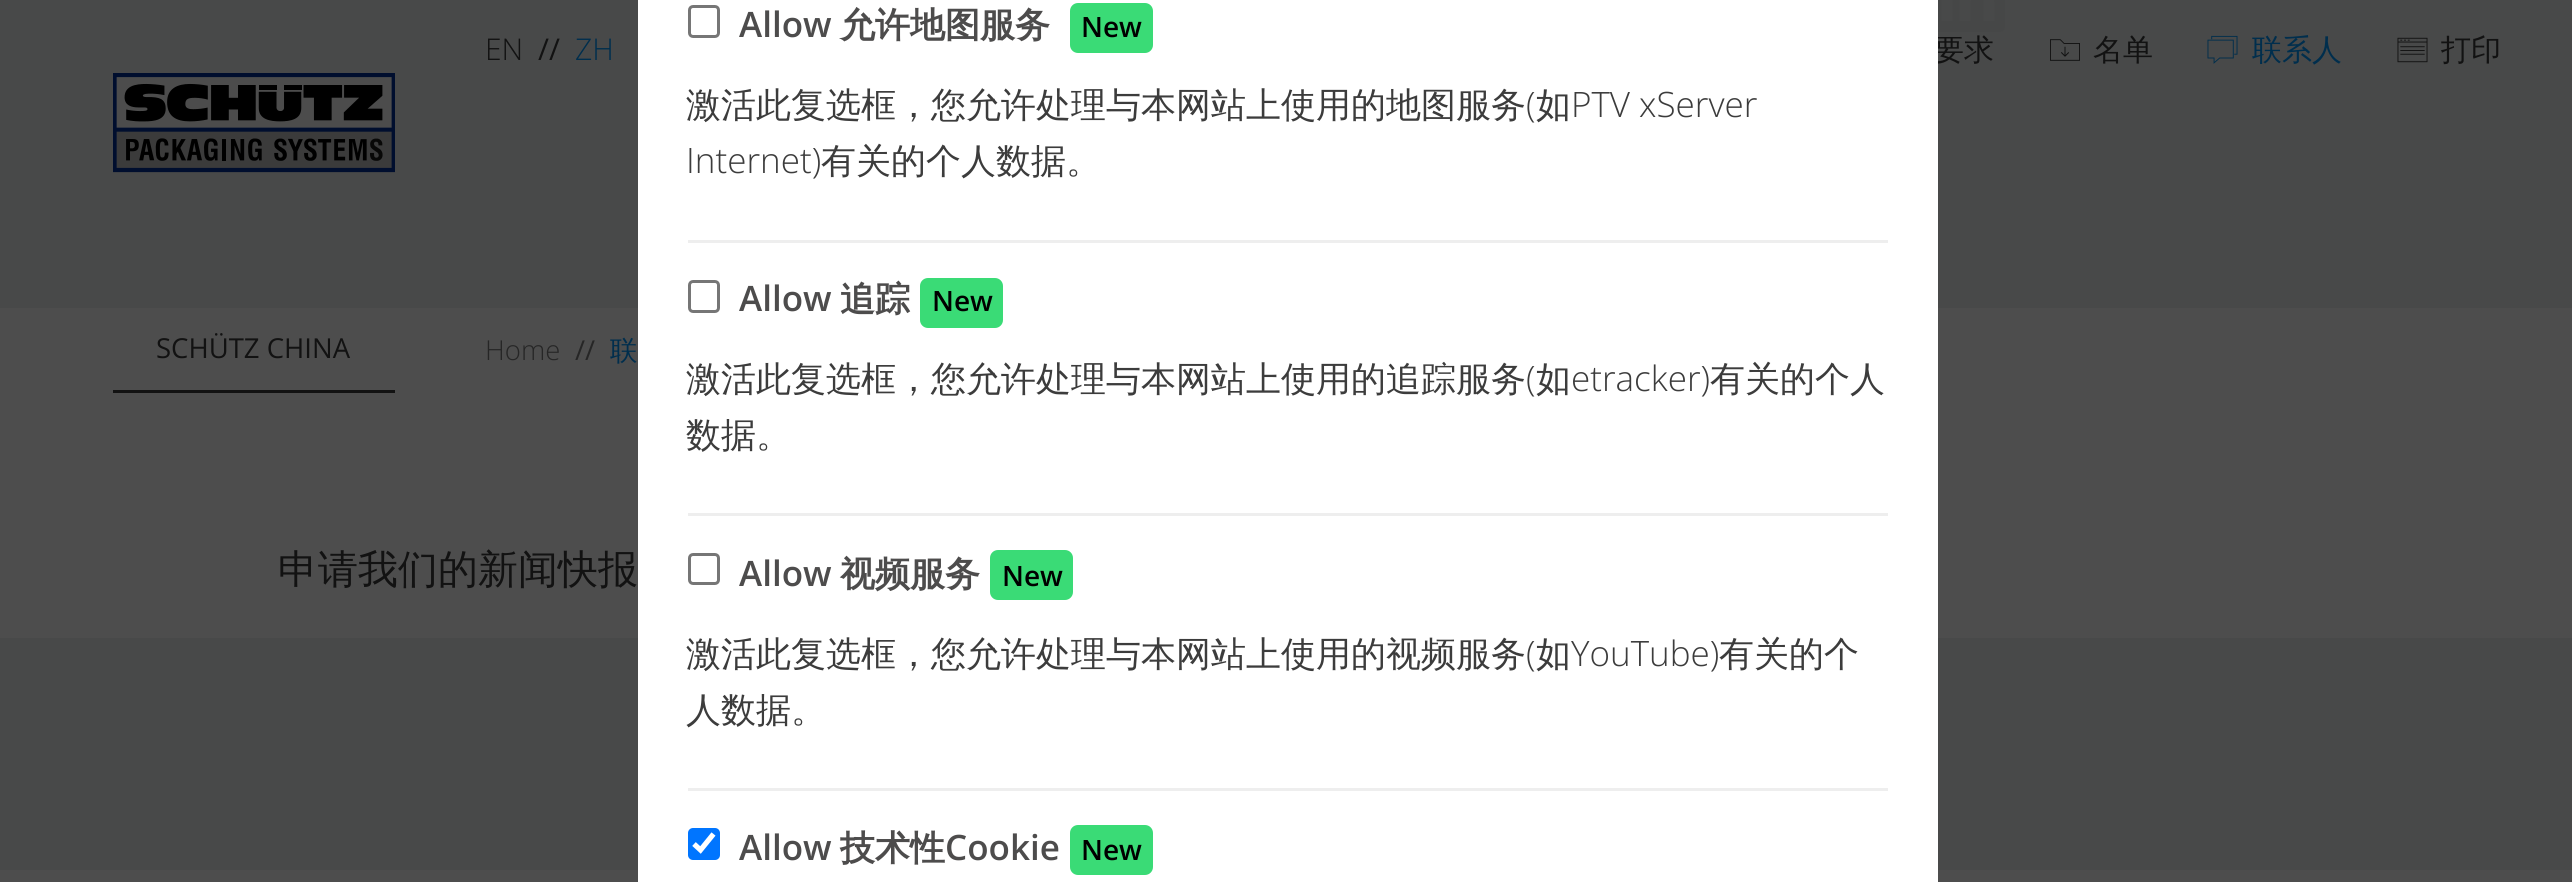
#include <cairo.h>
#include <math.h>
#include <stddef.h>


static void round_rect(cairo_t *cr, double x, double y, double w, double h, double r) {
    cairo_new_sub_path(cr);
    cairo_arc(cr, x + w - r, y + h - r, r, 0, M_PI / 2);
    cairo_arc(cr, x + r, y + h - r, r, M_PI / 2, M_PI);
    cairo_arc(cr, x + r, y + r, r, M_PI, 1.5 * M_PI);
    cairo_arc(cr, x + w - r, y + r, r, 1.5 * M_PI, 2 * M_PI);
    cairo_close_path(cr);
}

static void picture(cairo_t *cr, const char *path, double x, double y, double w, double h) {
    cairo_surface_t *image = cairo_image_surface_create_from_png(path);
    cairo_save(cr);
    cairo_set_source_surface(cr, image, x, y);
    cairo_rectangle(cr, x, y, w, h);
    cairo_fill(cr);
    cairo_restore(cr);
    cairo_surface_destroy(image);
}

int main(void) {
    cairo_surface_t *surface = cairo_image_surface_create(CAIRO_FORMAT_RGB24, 2572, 882);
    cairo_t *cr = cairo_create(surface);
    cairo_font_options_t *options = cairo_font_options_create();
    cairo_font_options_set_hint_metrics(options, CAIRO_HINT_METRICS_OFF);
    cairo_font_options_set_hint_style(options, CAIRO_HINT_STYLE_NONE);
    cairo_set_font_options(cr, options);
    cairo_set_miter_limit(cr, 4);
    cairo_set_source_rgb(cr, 0.302, 0.302, 0.302);
    cairo_paint(cr);
    picture(cr, "img5.png", 1938, 0, 67, 32);
    cairo_set_source_rgba(cr, 0.282, 0.286, 0.286, 0.95);
    cairo_rectangle(cr, 0, 0, 2572, 308);
    cairo_fill(cr);
    cairo_select_font_face(cr, "WenQuanYi Zen Hei Medium", CAIRO_FONT_SLANT_NORMAL, CAIRO_FONT_WEIGHT_NORMAL);
    cairo_set_font_size(cr, 30);
    cairo_set_source_rgb(cr, 0.071, 0.071, 0.071);
    cairo_move_to(cr, 1934, 60);
    cairo_show_text(cr, "要求");
    cairo_set_source_rgb(cr, 0.282, 0.286, 0.286);
    cairo_rectangle(cr, 0, 638, 2572, 232);
    cairo_fill(cr);
    cairo_set_source_rgb(cr, 1, 1, 1);
    cairo_rectangle(cr, 638, 0, 1300, 882);
    cairo_fill(cr);
    round_rect(cr, 689.5, 6.5, 29, 30, 3.5);
    cairo_set_source_rgb(cr, 0.463, 0.463, 0.463);
    cairo_set_line_width(cr, 3);
    cairo_stroke(cr);
    cairo_select_font_face(cr, "Open Sans SemiBold", CAIRO_FONT_SLANT_NORMAL, CAIRO_FONT_WEIGHT_NORMAL);
    cairo_set_font_size(cr, 35);
    cairo_set_source_rgb(cr, 0.302, 0.298, 0.298);
    cairo_move_to(cr, 739, 37);
    cairo_show_text(cr, "Allow");
    cairo_select_font_face(cr, "WenQuanYi Zen Hei", CAIRO_FONT_SLANT_NORMAL, CAIRO_FONT_WEIGHT_BOLD);
    cairo_move_to(cr, 840, 37);
    cairo_show_text(cr, "允许地图服务");
    cairo_set_source_rgb(cr, 0.227, 0.859, 0.463);
    round_rect(cr, 1070, 3, 83, 50, 8);
    cairo_fill(cr);
    cairo_select_font_face(cr, "Open Sans SemiBold", CAIRO_FONT_SLANT_NORMAL, CAIRO_FONT_WEIGHT_NORMAL);
    cairo_set_font_size(cr, 28);
    cairo_set_source_rgb(cr, 0, 0, 0);
    cairo_move_to(cr, 1081, 37);
    cairo_show_text(cr, "New");
    cairo_select_font_face(cr, "WenQuanYi Zen Hei Medium", CAIRO_FONT_SLANT_NORMAL, CAIRO_FONT_WEIGHT_NORMAL);
    cairo_set_font_size(cr, 35);
    cairo_set_source_rgb(cr, 0.235, 0.235, 0.235);
    cairo_move_to(cr, 686, 117);
    cairo_show_text(cr, "激活此复选框，您允许处理与本网站上使用的地图服务");
    cairo_select_font_face(cr, "Open Sans Light", CAIRO_FONT_SLANT_NORMAL, CAIRO_FONT_WEIGHT_NORMAL);
    cairo_move_to(cr, 1526, 117);
    cairo_show_text(cr, "(");
    cairo_select_font_face(cr, "WenQuanYi Zen Hei Medium", CAIRO_FONT_SLANT_NORMAL, CAIRO_FONT_WEIGHT_NORMAL);
    cairo_move_to(cr, 1536, 117);
    cairo_show_text(cr, "如");
    cairo_select_font_face(cr, "Open Sans Light", CAIRO_FONT_SLANT_NORMAL, CAIRO_FONT_WEIGHT_NORMAL);
    cairo_move_to(cr, 1571, 117);
    cairo_show_text(cr, "PTV xServer");
    cairo_move_to(cr, 686, 173);
    cairo_show_text(cr, "Internet)");
    cairo_select_font_face(cr, "WenQuanYi Zen Hei Medium", CAIRO_FONT_SLANT_NORMAL, CAIRO_FONT_WEIGHT_NORMAL);
    cairo_move_to(cr, 821, 173);
    cairo_show_text(cr, "有关的个人数据。");
    cairo_set_source_rgb(cr, 0.933, 0.933, 0.933);
    cairo_rectangle(cr, 688, 240, 1200, 3);
    cairo_fill(cr);
    round_rect(cr, 689.5, 281.5, 29, 30, 3.5);
    cairo_set_source_rgb(cr, 0.463, 0.463, 0.463);
    cairo_stroke(cr);
    cairo_select_font_face(cr, "Open Sans SemiBold", CAIRO_FONT_SLANT_NORMAL, CAIRO_FONT_WEIGHT_NORMAL);
    cairo_set_source_rgb(cr, 0.302, 0.298, 0.298);
    cairo_move_to(cr, 739, 311);
    cairo_show_text(cr, "Allow");
    cairo_select_font_face(cr, "WenQuanYi Zen Hei", CAIRO_FONT_SLANT_NORMAL, CAIRO_FONT_WEIGHT_BOLD);
    cairo_move_to(cr, 840, 311);
    cairo_show_text(cr, "追踪");
    cairo_set_source_rgb(cr, 0.227, 0.859, 0.463);
    round_rect(cr, 920, 278, 83, 50, 8);
    cairo_fill(cr);
    cairo_select_font_face(cr, "Open Sans SemiBold", CAIRO_FONT_SLANT_NORMAL, CAIRO_FONT_WEIGHT_NORMAL);
    cairo_set_font_size(cr, 28);
    cairo_set_source_rgb(cr, 0, 0, 0);
    cairo_move_to(cr, 932, 311);
    cairo_show_text(cr, "New");
    cairo_select_font_face(cr, "WenQuanYi Zen Hei Medium", CAIRO_FONT_SLANT_NORMAL, CAIRO_FONT_WEIGHT_NORMAL);
    cairo_set_font_size(cr, 35);
    cairo_set_source_rgb(cr, 0.235, 0.235, 0.235);
    cairo_move_to(cr, 686, 391);
    cairo_show_text(cr, "激活此复选框，您允许处理与本网站上使用的追踪服务");
    cairo_select_font_face(cr, "Open Sans Light", CAIRO_FONT_SLANT_NORMAL, CAIRO_FONT_WEIGHT_NORMAL);
    cairo_move_to(cr, 1526, 391);
    cairo_show_text(cr, "(");
    cairo_select_font_face(cr, "WenQuanYi Zen Hei Medium", CAIRO_FONT_SLANT_NORMAL, CAIRO_FONT_WEIGHT_NORMAL);
    cairo_move_to(cr, 1536, 391);
    cairo_show_text(cr, "如");
    cairo_select_font_face(cr, "Open Sans Light", CAIRO_FONT_SLANT_NORMAL, CAIRO_FONT_WEIGHT_NORMAL);
    cairo_move_to(cr, 1571, 391);
    cairo_show_text(cr, "etracker)");
    cairo_select_font_face(cr, "WenQuanYi Zen Hei Medium", CAIRO_FONT_SLANT_NORMAL, CAIRO_FONT_WEIGHT_NORMAL);
    cairo_move_to(cr, 1710, 391);
    cairo_show_text(cr, "有关的个人");
    cairo_move_to(cr, 686, 447);
    cairo_show_text(cr, "数据。");
    cairo_set_source_rgb(cr, 0.933, 0.933, 0.933);
    cairo_rectangle(cr, 688, 513, 1200, 3);
    cairo_fill(cr);
    round_rect(cr, 689.5, 554.5, 29, 29, 3.5);
    cairo_set_source_rgb(cr, 0.463, 0.463, 0.463);
    cairo_stroke(cr);
    cairo_select_font_face(cr, "Open Sans SemiBold", CAIRO_FONT_SLANT_NORMAL, CAIRO_FONT_WEIGHT_NORMAL);
    cairo_set_source_rgb(cr, 0.302, 0.298, 0.298);
    cairo_move_to(cr, 739, 586);
    cairo_show_text(cr, "Allow");
    cairo_select_font_face(cr, "WenQuanYi Zen Hei", CAIRO_FONT_SLANT_NORMAL, CAIRO_FONT_WEIGHT_BOLD);
    cairo_move_to(cr, 840, 586);
    cairo_show_text(cr, "视频服务");
    cairo_set_source_rgb(cr, 0.227, 0.859, 0.463);
    round_rect(cr, 990, 550, 83, 50, 8);
    cairo_fill(cr);
    cairo_select_font_face(cr, "Open Sans SemiBold", CAIRO_FONT_SLANT_NORMAL, CAIRO_FONT_WEIGHT_NORMAL);
    cairo_set_font_size(cr, 28);
    cairo_set_source_rgb(cr, 0, 0, 0);
    cairo_move_to(cr, 1002, 586);
    cairo_show_text(cr, "New");
    cairo_select_font_face(cr, "WenQuanYi Zen Hei Medium", CAIRO_FONT_SLANT_NORMAL, CAIRO_FONT_WEIGHT_NORMAL);
    cairo_set_font_size(cr, 35);
    cairo_set_source_rgb(cr, 0.235, 0.235, 0.235);
    cairo_move_to(cr, 686, 666);
    cairo_show_text(cr, "激活此复选框，您允许处理与本网站上使用的视频服务");
    cairo_select_font_face(cr, "Open Sans Light", CAIRO_FONT_SLANT_NORMAL, CAIRO_FONT_WEIGHT_NORMAL);
    cairo_move_to(cr, 1526, 666);
    cairo_show_text(cr, "(");
    cairo_select_font_face(cr, "WenQuanYi Zen Hei Medium", CAIRO_FONT_SLANT_NORMAL, CAIRO_FONT_WEIGHT_NORMAL);
    cairo_move_to(cr, 1536, 666);
    cairo_show_text(cr, "如");
    cairo_select_font_face(cr, "Open Sans Light", CAIRO_FONT_SLANT_NORMAL, CAIRO_FONT_WEIGHT_NORMAL);
    cairo_move_to(cr, 1571, 666);
    cairo_show_text(cr, "YouTube)");
    cairo_select_font_face(cr, "WenQuanYi Zen Hei Medium", CAIRO_FONT_SLANT_NORMAL, CAIRO_FONT_WEIGHT_NORMAL);
    cairo_move_to(cr, 1719, 666);
    cairo_show_text(cr, "有关的个");
    cairo_move_to(cr, 686, 722);
    cairo_show_text(cr, "人数据。");
    cairo_set_source_rgb(cr, 0.933, 0.933, 0.933);
    cairo_rectangle(cr, 688, 788, 1200, 3);
    cairo_fill(cr);
    cairo_set_source_rgb(cr, 0, 0.459, 1);
    round_rect(cr, 688, 828, 32, 32, 5);
    cairo_fill(cr);
    cairo_new_path(cr);
    cairo_move_to(cr, 694, 844);
    cairo_line_to(cr, 700.5, 850);
    cairo_line_to(cr, 713.5, 834);
    cairo_set_source_rgb(cr, 1, 1, 1);
    cairo_set_line_width(cr, 5.2);
    cairo_stroke(cr);
    cairo_select_font_face(cr, "Open Sans SemiBold", CAIRO_FONT_SLANT_NORMAL, CAIRO_FONT_WEIGHT_NORMAL);
    cairo_set_source_rgb(cr, 0.302, 0.298, 0.298);
    cairo_move_to(cr, 739, 860);
    cairo_show_text(cr, "Allow");
    cairo_select_font_face(cr, "WenQuanYi Zen Hei", CAIRO_FONT_SLANT_NORMAL, CAIRO_FONT_WEIGHT_BOLD);
    cairo_move_to(cr, 840, 860);
    cairo_show_text(cr, "技术性");
    cairo_select_font_face(cr, "Open Sans SemiBold", CAIRO_FONT_SLANT_NORMAL, CAIRO_FONT_WEIGHT_NORMAL);
    cairo_move_to(cr, 945, 860);
    cairo_show_text(cr, "Cookie");
    cairo_set_source_rgb(cr, 0.227, 0.859, 0.463);
    round_rect(cr, 1070, 825, 83, 50, 8);
    cairo_fill(cr);
    cairo_set_font_size(cr, 28);
    cairo_set_source_rgb(cr, 0, 0, 0);
    cairo_move_to(cr, 1081, 860);
    cairo_show_text(cr, "New");
    cairo_select_font_face(cr, "Open Sans Light", CAIRO_FONT_SLANT_NORMAL, CAIRO_FONT_WEIGHT_NORMAL);
    cairo_set_font_size(cr, 30);
    cairo_set_source_rgb(cr, 0.071, 0.071, 0.071);
    cairo_move_to(cr, 485, 60);
    cairo_show_text(cr, "EN");
    cairo_select_font_face(cr, "Open Sans", CAIRO_FONT_SLANT_NORMAL, CAIRO_FONT_WEIGHT_NORMAL);
    cairo_move_to(cr, 538, 60);
    cairo_show_text(cr, "//");
    cairo_select_font_face(cr, "Open Sans Light", CAIRO_FONT_SLANT_NORMAL, CAIRO_FONT_WEIGHT_NORMAL);
    cairo_set_source_rgb(cr, 0, 0.18, 0.302);
    cairo_move_to(cr, 575, 60);
    cairo_show_text(cr, "ZH");
    picture(cr, "img1.png", 2050, 39, 30, 22);
    cairo_select_font_face(cr, "WenQuanYi Zen Hei Medium", CAIRO_FONT_SLANT_NORMAL, CAIRO_FONT_WEIGHT_NORMAL);
    cairo_set_source_rgb(cr, 0.071, 0.071, 0.071);
    cairo_move_to(cr, 2093, 60);
    cairo_show_text(cr, "名单");
    picture(cr, "img2.png", 2207, 35, 31, 29);
    cairo_set_source_rgb(cr, 0, 0.18, 0.302);
    cairo_move_to(cr, 2252, 60);
    cairo_show_text(cr, "联系人");
    picture(cr, "img3.png", 2397, 37, 31, 26);
    cairo_set_source_rgb(cr, 0.071, 0.071, 0.071);
    cairo_move_to(cr, 2441, 60);
    cairo_show_text(cr, "打印");
    picture(cr, "img4.png", 113, 73, 282, 100);
    cairo_rectangle(cr, 113, 390, 282, 3);
    cairo_fill(cr);
    cairo_select_font_face(cr, "Open Sans", CAIRO_FONT_SLANT_NORMAL, CAIRO_FONT_WEIGHT_NORMAL);
    cairo_set_font_size(cr, 27.5);
    cairo_move_to(cr, 156, 358);
    cairo_show_text(cr, "SCHÜTZ CHINA");
    cairo_select_font_face(cr, "Open Sans Light", CAIRO_FONT_SLANT_NORMAL, CAIRO_FONT_WEIGHT_NORMAL);
    cairo_set_source_rgb(cr, 0.149, 0.149, 0.149);
    cairo_move_to(cr, 485, 360);
    cairo_show_text(cr, "Home");
    cairo_select_font_face(cr, "Open Sans", CAIRO_FONT_SLANT_NORMAL, CAIRO_FONT_WEIGHT_NORMAL);
    cairo_move_to(cr, 575, 360);
    cairo_show_text(cr, "//");
    cairo_select_font_face(cr, "WenQuanYi Zen Hei Medium", CAIRO_FONT_SLANT_NORMAL, CAIRO_FONT_WEIGHT_NORMAL);
    cairo_set_source_rgb(cr, 0, 0.18, 0.302);
    cairo_move_to(cr, 610, 360);
    cairo_show_text(cr, "联");
    cairo_set_font_size(cr, 40);
    cairo_set_source_rgb(cr, 0.071, 0.071, 0.071);
    cairo_move_to(cr, 278, 583);
    cairo_show_text(cr, "申请我们的新闻快报");
    cairo_surface_write_to_png(surface, "page.png");
    cairo_font_options_destroy(options);
    cairo_destroy(cr);
    cairo_surface_destroy(surface);
    return 0;
}
